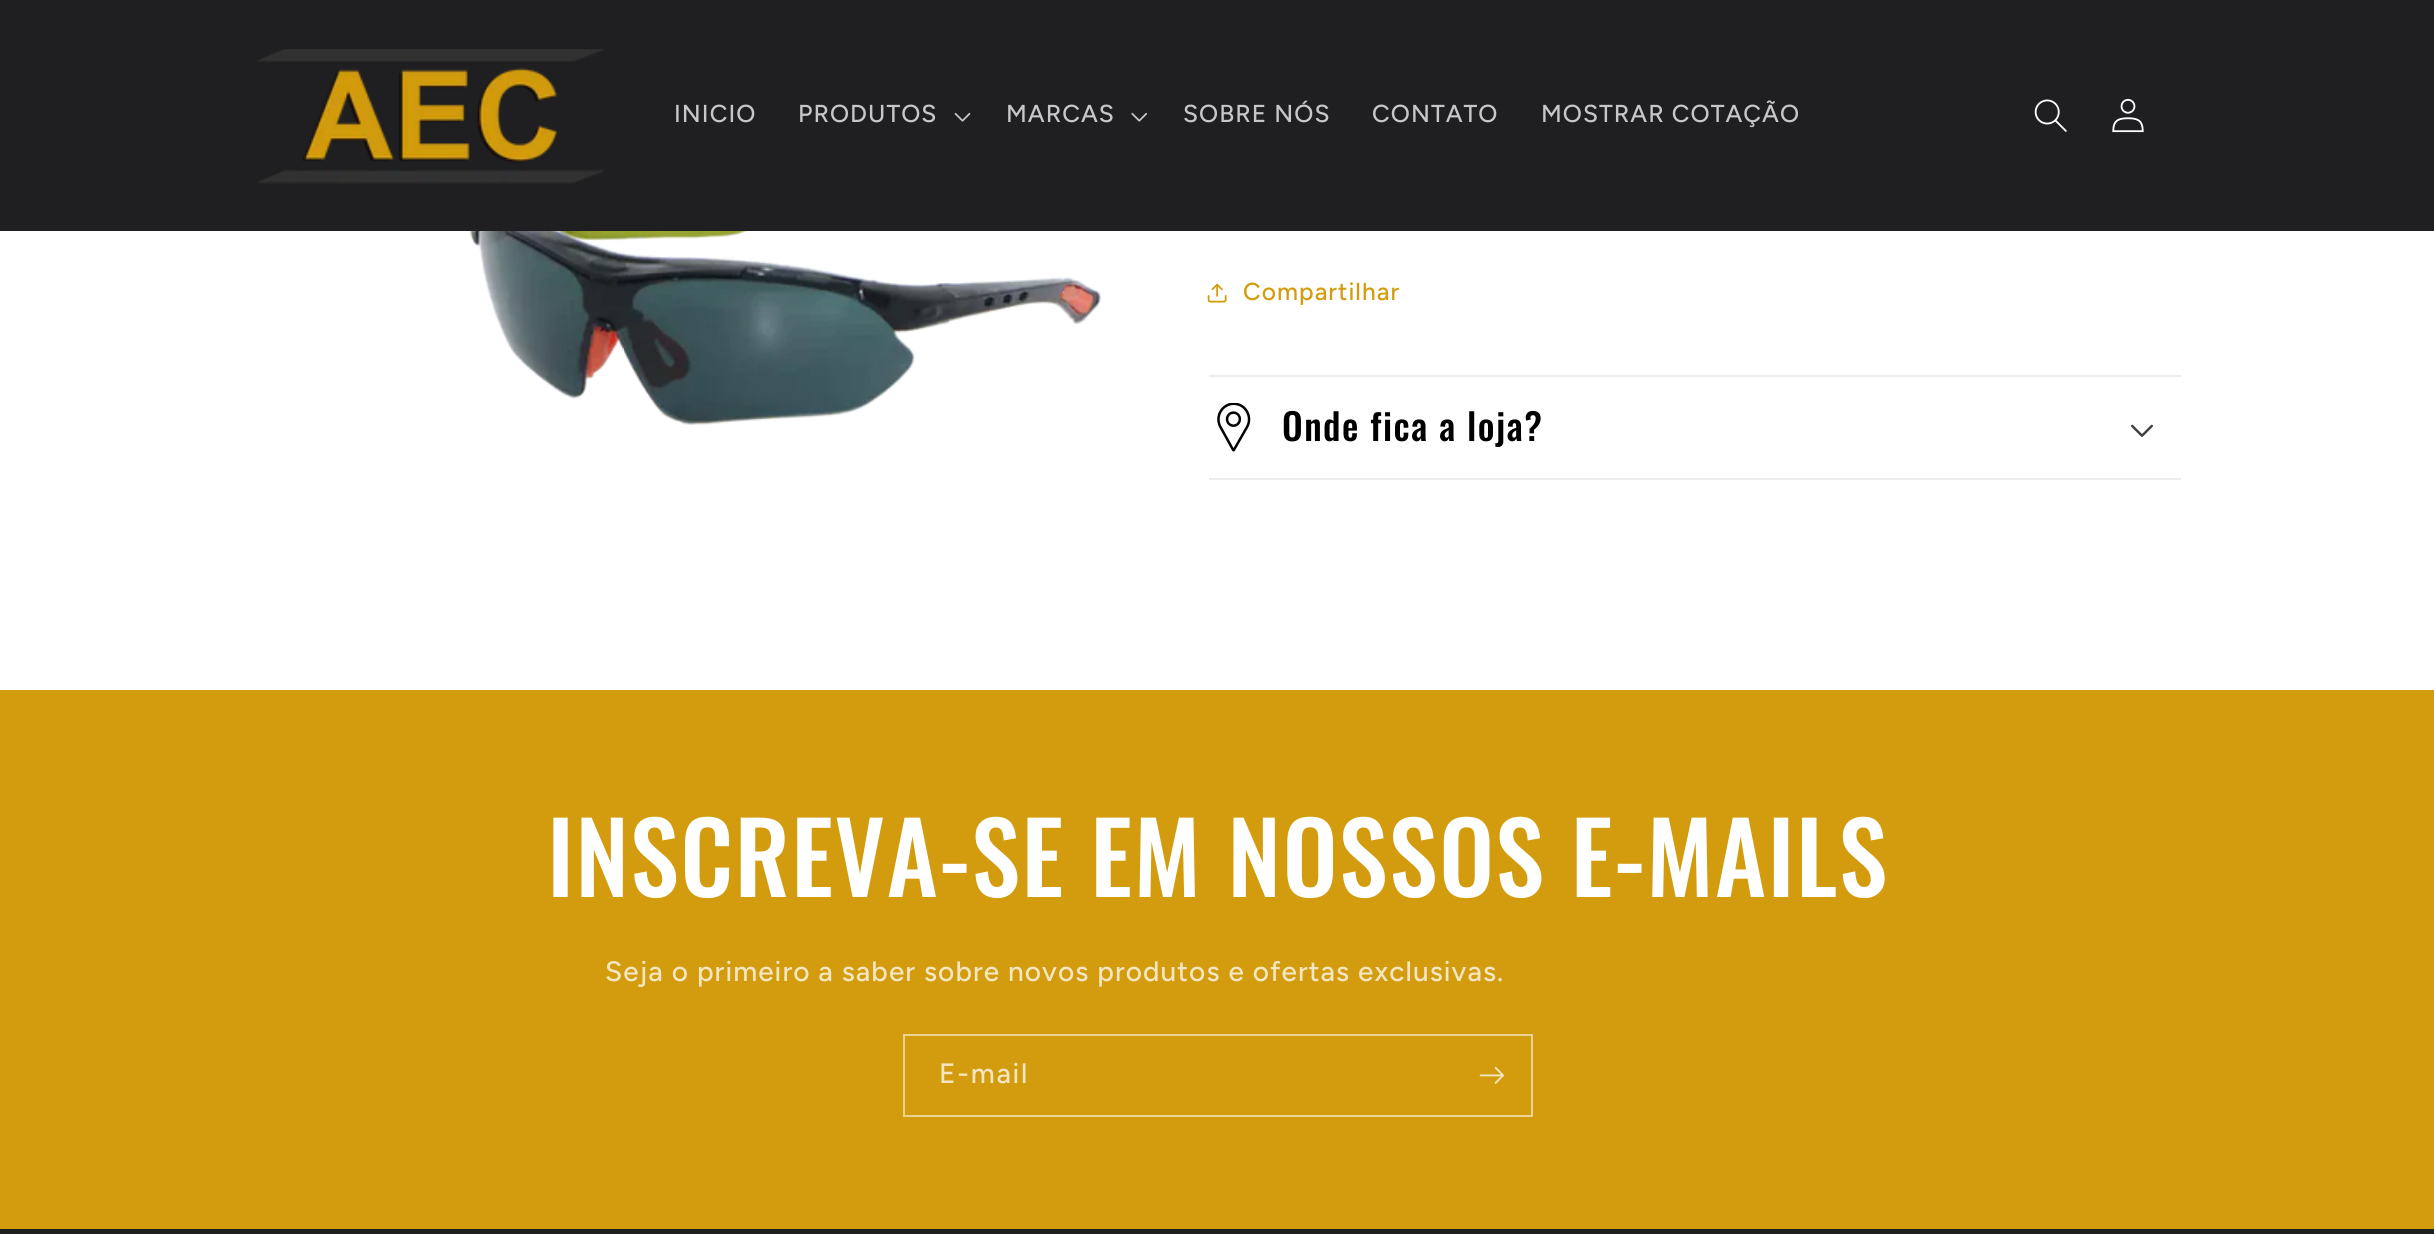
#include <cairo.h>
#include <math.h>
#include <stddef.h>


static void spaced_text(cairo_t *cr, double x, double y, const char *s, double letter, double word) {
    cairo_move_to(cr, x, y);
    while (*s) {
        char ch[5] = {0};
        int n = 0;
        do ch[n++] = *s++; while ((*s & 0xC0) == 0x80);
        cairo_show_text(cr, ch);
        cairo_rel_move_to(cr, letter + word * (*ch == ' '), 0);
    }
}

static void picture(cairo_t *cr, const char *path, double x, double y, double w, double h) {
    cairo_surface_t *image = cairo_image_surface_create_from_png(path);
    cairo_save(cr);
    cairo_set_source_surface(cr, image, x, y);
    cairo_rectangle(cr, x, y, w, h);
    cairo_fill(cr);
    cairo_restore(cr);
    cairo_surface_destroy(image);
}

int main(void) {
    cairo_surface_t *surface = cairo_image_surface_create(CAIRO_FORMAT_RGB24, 2434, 1234);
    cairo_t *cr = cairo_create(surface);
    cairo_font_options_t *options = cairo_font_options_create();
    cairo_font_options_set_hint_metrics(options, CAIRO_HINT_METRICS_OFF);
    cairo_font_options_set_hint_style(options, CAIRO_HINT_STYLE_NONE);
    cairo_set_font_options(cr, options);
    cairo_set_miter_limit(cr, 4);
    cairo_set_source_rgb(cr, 1, 1, 1);
    cairo_paint(cr);
    cairo_set_source_rgb(cr, 0.122, 0.122, 0.129);
    cairo_rectangle(cr, 0, 0, 2434, 231);
    cairo_fill(cr);
    picture(cr, "img1.png", 257, 49, 347, 135);
    cairo_select_font_face(cr, "Figtree Medium", CAIRO_FONT_SLANT_NORMAL, CAIRO_FONT_WEIGHT_NORMAL);
    cairo_set_font_size(cr, 24.5);
    cairo_set_source_rgb(cr, 0.78, 0.78, 0.784);
    spaced_text(cr, 674, 122, "INICIO", 1.05, 0);
    spaced_text(cr, 798, 122, "PRODUTOS", 1.05, 0);
    picture(cr, "img2.png", 954, 112, 17, 10);
    spaced_text(cr, 1006, 122, "MARCAS", 1.05, 0);
    picture(cr, "img3.png", 1131, 112, 17, 10);
    spaced_text(cr, 1183, 122, "SOBRE NÓS", 1.05, 0);
    spaced_text(cr, 1372, 122, "CONTATO", 1.05, 0);
    spaced_text(cr, 1541, 122, "MOSTRAR COTAÇÃO", 1.05, 0);
    picture(cr, "img4.png", 2034, 99, 33, 33);
    picture(cr, "img5.png", 2112, 98, 32, 35);
    picture(cr, "img6.png", 469, 231, 632, 194);
    picture(cr, "img7.png", 1207, 283, 20, 20);
    cairo_set_source_rgb(cr, 0.827, 0.612, 0.055);
    spaced_text(cr, 1243, 300, "Compartilhar", 1.05, 0);
    cairo_set_source_rgb(cr, 0.922, 0.922, 0.922);
    cairo_rectangle(cr, 1209, 375, 972, 2);
    cairo_fill(cr);
    cairo_rectangle(cr, 1209, 478, 972, 2);
    cairo_fill(cr);
    picture(cr, "img8.png", 1217, 403, 34, 49);
    cairo_select_font_face(cr, "Oswald Medium", CAIRO_FONT_SLANT_NORMAL, CAIRO_FONT_WEIGHT_NORMAL);
    cairo_set_font_size(cr, 36.75);
    cairo_set_source_rgb(cr, 0, 0, 0);
    spaced_text(cr, 1282, 441, "Onde fica a loja?", 1.5, 0);
    picture(cr, "img9.png", 2131, 424, 22, 13);
    cairo_set_source_rgb(cr, 0.827, 0.612, 0.055);
    cairo_rectangle(cr, 0, 690, 2434, 539);
    cairo_fill(cr);
    cairo_set_font_size(cr, 98);
    cairo_set_source_rgb(cr, 1, 1, 1);
    spaced_text(cr, 547, 897, "INSCREVA-SE EM NOSSOS E-MAILS", 1.5, 0);
    cairo_select_font_face(cr, "Figtree Medium", CAIRO_FONT_SLANT_NORMAL, CAIRO_FONT_WEIGHT_NORMAL);
    cairo_set_font_size(cr, 28);
    cairo_set_source_rgb(cr, 0.957, 0.902, 0.765);
    spaced_text(cr, 605, 981, "Seja o primeiro a saber sobre novos produtos e ofertas exclusivas.", 1.05, 0);
    cairo_rectangle(cr, 904, 1035, 628, 81);
    cairo_set_source_rgb(cr, 0.922, 0.824, 0.576);
    cairo_stroke(cr);
    cairo_set_source_rgb(cr, 0.957, 0.902, 0.765);
    spaced_text(cr, 939, 1083, "E-mail", 1.75, 0);
    picture(cr, "img10.png", 1479, 1067, 25, 17);
    cairo_set_source_rgb(cr, 0.122, 0.122, 0.129);
    cairo_rectangle(cr, 0, 1229, 2434, 5);
    cairo_fill(cr);
    cairo_surface_write_to_png(surface, "page.png");
    cairo_font_options_destroy(options);
    cairo_destroy(cr);
    cairo_surface_destroy(surface);
    return 0;
}
